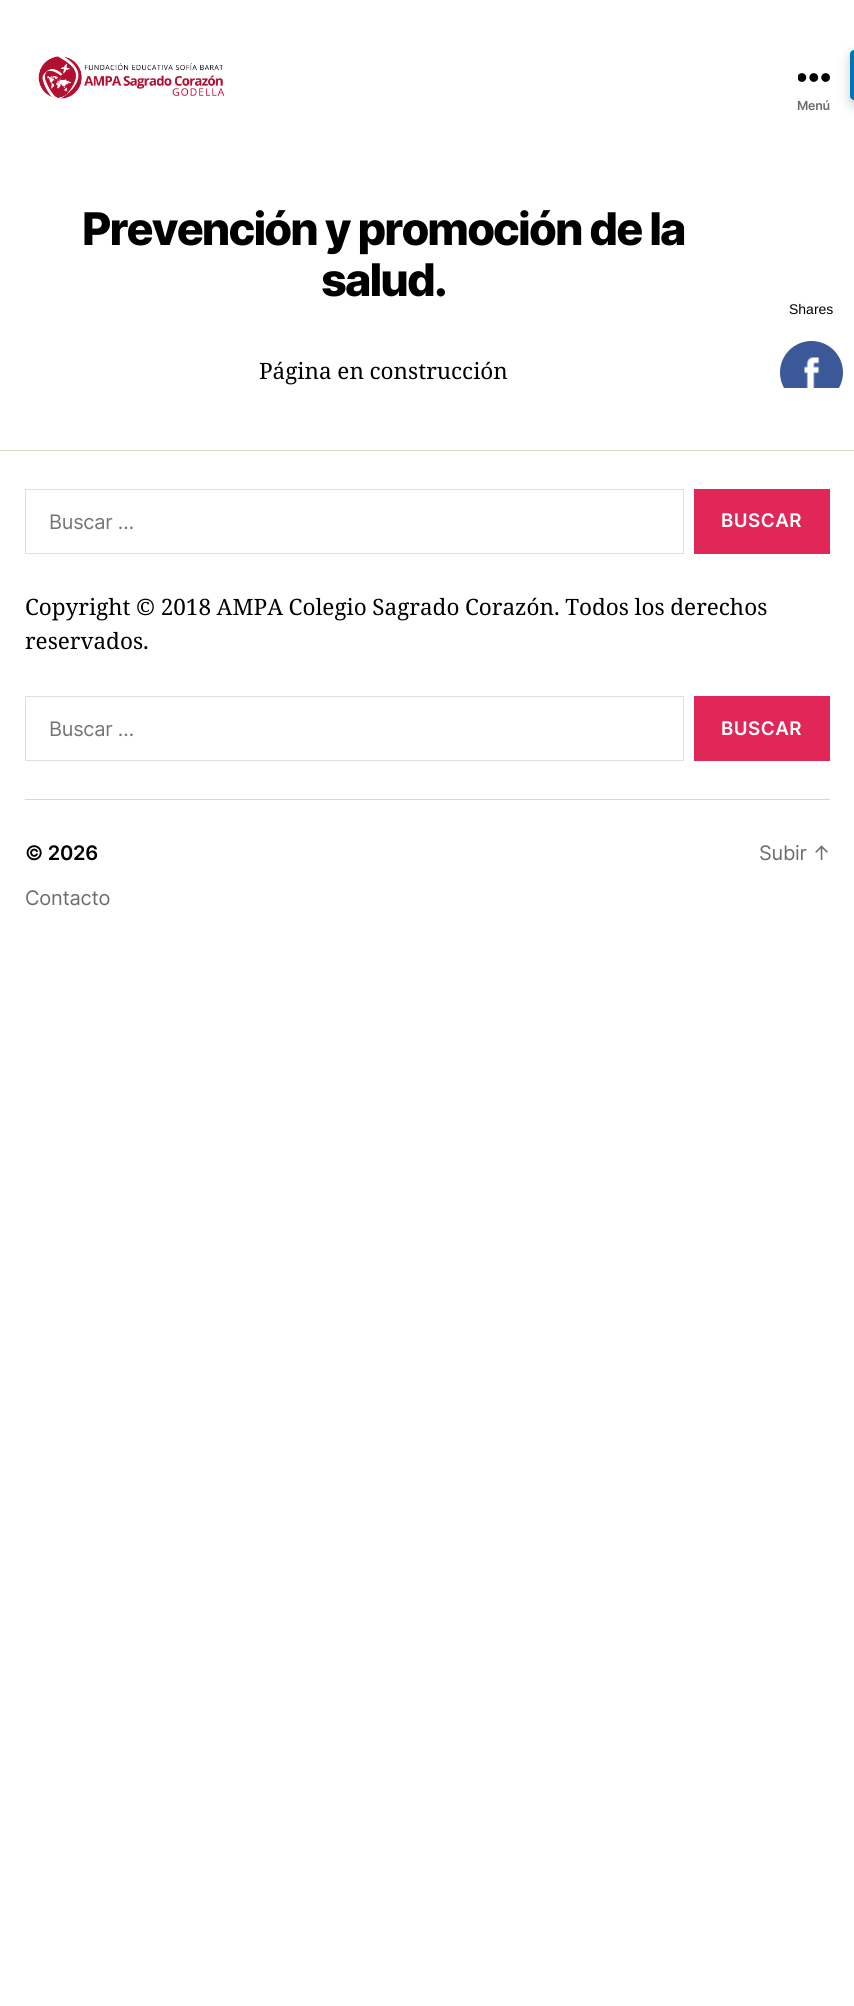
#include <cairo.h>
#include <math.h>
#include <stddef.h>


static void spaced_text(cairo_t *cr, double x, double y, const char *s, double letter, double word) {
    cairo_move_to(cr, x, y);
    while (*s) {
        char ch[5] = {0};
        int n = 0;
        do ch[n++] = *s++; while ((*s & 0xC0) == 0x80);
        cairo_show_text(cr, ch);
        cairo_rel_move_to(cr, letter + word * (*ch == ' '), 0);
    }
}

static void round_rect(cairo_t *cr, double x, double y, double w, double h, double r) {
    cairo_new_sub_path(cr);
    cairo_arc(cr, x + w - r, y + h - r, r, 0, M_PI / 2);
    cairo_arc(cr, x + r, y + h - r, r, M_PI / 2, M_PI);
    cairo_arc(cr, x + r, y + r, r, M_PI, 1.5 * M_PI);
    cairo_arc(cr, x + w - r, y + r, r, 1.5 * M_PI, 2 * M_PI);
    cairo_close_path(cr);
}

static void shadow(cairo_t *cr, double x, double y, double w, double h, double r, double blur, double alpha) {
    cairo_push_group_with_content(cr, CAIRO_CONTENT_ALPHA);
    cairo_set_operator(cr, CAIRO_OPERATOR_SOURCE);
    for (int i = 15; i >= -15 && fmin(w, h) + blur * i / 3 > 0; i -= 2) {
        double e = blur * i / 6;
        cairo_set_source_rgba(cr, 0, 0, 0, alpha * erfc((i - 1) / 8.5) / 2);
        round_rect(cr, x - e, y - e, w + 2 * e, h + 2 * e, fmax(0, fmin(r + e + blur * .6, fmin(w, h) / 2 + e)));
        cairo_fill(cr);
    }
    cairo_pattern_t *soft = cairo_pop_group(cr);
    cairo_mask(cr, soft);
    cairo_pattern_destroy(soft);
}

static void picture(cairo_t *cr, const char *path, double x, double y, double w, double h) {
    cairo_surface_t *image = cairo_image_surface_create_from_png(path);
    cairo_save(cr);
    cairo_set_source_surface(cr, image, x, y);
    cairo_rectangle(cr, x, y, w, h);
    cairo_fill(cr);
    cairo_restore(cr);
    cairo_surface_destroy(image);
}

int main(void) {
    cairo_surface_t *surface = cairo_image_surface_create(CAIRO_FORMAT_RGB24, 854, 2006);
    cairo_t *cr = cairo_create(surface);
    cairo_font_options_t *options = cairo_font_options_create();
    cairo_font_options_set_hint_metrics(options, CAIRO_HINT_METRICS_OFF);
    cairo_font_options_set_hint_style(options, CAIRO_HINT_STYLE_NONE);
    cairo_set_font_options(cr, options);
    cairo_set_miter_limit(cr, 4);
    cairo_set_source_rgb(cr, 1, 1, 1);
    cairo_paint(cr);
    picture(cr, "img1.png", 38, 56, 187, 43);
    picture(cr, "img2.png", 798, 73, 32, 9);
    cairo_select_font_face(cr, "Inter SemiBold", CAIRO_FONT_SLANT_NORMAL, CAIRO_FONT_WEIGHT_NORMAL);
    cairo_set_font_size(cr, 12.5);
    cairo_set_source_rgb(cr, 0.427, 0.427, 0.427);
    spaced_text(cr, 797, 110, "Menú", -0.25, 0);
    cairo_set_source_rgb(cr, 0, 0, 0);
    shadow(cr, 850, 55, 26, 50, 4, 6, 0.2);
    cairo_set_source_rgb(cr, 0, 0.451, 0.718);
    cairo_new_path(cr);
    cairo_move_to(cr, 854, 50);
    cairo_line_to(cr, 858, 50);
    cairo_line_to(cr, 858, 100);
    cairo_line_to(cr, 854, 100);
    cairo_curve_to(cr, 852, 100, 850, 98, 850, 96);
    cairo_line_to(cr, 850, 54);
    cairo_curve_to(cr, 850, 52, 852, 50, 854, 50);
    cairo_close_path(cr);
    cairo_fill(cr);
    cairo_select_font_face(cr, "Inter ExtraBold", CAIRO_FONT_SLANT_NORMAL, CAIRO_FONT_WEIGHT_NORMAL);
    cairo_set_font_size(cr, 45);
    cairo_set_source_rgb(cr, 0, 0, 0);
    spaced_text(cr, 82, 245, "Prevención y promoción de la", -1.9, 0);
    spaced_text(cr, 321, 296, "salud.", -1.9, 0);
    cairo_select_font_face(cr, "Liberation Sans", CAIRO_FONT_SLANT_NORMAL, CAIRO_FONT_WEIGHT_NORMAL);
    cairo_set_font_size(cr, 14);
    cairo_move_to(cr, 789, 314);
    cairo_show_text(cr, "Shares");
    cairo_save(cr);
    cairo_rectangle(cr, 0, 154, 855, 234);
    cairo_clip(cr);
    cairo_set_source_rgb(cr, 0.231, 0.349, 0.596);
    cairo_arc(cr, 811.5, 372.5, 31.5, 0, 2 * M_PI);
    cairo_fill(cr);
    cairo_restore(cr);
    picture(cr, "img3.png", 804, 357, 16, 31);
    cairo_select_font_face(cr, "Noto Serif", CAIRO_FONT_SLANT_NORMAL, CAIRO_FONT_WEIGHT_NORMAL);
    cairo_set_font_size(cr, 22.5);
    spaced_text(cr, 259, 379, "Página en construcción", 0, -0.25);
    cairo_set_source_rgb(cr, 0.863, 0.843, 0.792);
    cairo_rectangle(cr, 0, 450, 854, 1);
    cairo_fill(cr);
    cairo_rectangle(cr, 25, 799, 805, 1);
    cairo_fill(cr);
    cairo_rectangle(cr, 25.5, 489.5, 658, 64);
    cairo_set_source_rgb(cr, 0.871, 0.875, 0.875);
    cairo_set_line_width(cr, 1);
    cairo_stroke(cr);
    cairo_select_font_face(cr, "Inter", CAIRO_FONT_SLANT_NORMAL, CAIRO_FONT_WEIGHT_NORMAL);
    cairo_set_font_size(cr, 20);
    cairo_set_source_rgb(cr, 0.459, 0.459, 0.459);
    spaced_text(cr, 49, 529, "Buscar …", -0.25, 0);
    cairo_set_source_rgb(cr, 0.886, 0.149, 0.345);
    cairo_rectangle(cr, 694, 489, 136, 65);
    cairo_fill(cr);
    cairo_select_font_face(cr, "Inter SemiBold", CAIRO_FONT_SLANT_NORMAL, CAIRO_FONT_WEIGHT_NORMAL);
    cairo_set_font_size(cr, 18.75);
    cairo_set_source_rgb(cr, 1, 1, 1);
    spaced_text(cr, 721, 527, "BUSCAR", 0.5, 0);
    cairo_select_font_face(cr, "Noto Serif", CAIRO_FONT_SLANT_NORMAL, CAIRO_FONT_WEIGHT_NORMAL);
    cairo_set_font_size(cr, 22.5);
    cairo_set_source_rgb(cr, 0, 0, 0);
    spaced_text(cr, 25, 615, "Copyright © 2018 AMPA Colegio Sagrado Corazón. Todos los derechos", 0, -0.25);
    cairo_move_to(cr, 25, 649);
    cairo_show_text(cr, "reservados.");
    cairo_rectangle(cr, 25.5, 696.5, 658, 64);
    cairo_set_source_rgb(cr, 0.871, 0.875, 0.875);
    cairo_stroke(cr);
    cairo_select_font_face(cr, "Inter", CAIRO_FONT_SLANT_NORMAL, CAIRO_FONT_WEIGHT_NORMAL);
    cairo_set_font_size(cr, 20);
    cairo_set_source_rgb(cr, 0.459, 0.459, 0.459);
    spaced_text(cr, 49, 736, "Buscar …", -0.25, 0);
    cairo_set_source_rgb(cr, 0.886, 0.149, 0.345);
    cairo_rectangle(cr, 694, 696, 136, 65);
    cairo_fill(cr);
    cairo_select_font_face(cr, "Inter SemiBold", CAIRO_FONT_SLANT_NORMAL, CAIRO_FONT_WEIGHT_NORMAL);
    cairo_set_font_size(cr, 18.75);
    cairo_set_source_rgb(cr, 1, 1, 1);
    spaced_text(cr, 721, 735, "BUSCAR", 0.5, 0);
    cairo_set_font_size(cr, 20);
    cairo_set_source_rgb(cr, 0, 0, 0);
    spaced_text(cr, 25, 860, "© 2026", -0.25, 0);
    cairo_select_font_face(cr, "Inter", CAIRO_FONT_SLANT_NORMAL, CAIRO_FONT_WEIGHT_NORMAL);
    cairo_set_source_rgb(cr, 0.427, 0.427, 0.427);
    spaced_text(cr, 25, 905, "Contacto", -0.25, 0);
    spaced_text(cr, 759, 860, "Subir ↑", -0.25, 0);
    cairo_surface_write_to_png(surface, "page.png");
    cairo_font_options_destroy(options);
    cairo_destroy(cr);
    cairo_surface_destroy(surface);
    return 0;
}
